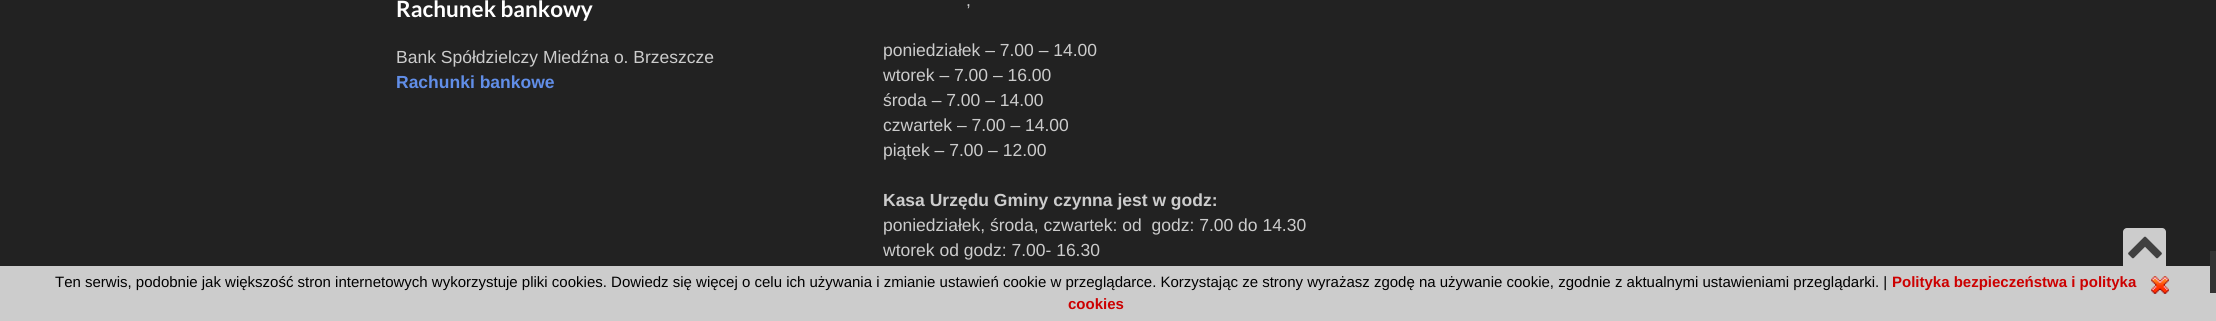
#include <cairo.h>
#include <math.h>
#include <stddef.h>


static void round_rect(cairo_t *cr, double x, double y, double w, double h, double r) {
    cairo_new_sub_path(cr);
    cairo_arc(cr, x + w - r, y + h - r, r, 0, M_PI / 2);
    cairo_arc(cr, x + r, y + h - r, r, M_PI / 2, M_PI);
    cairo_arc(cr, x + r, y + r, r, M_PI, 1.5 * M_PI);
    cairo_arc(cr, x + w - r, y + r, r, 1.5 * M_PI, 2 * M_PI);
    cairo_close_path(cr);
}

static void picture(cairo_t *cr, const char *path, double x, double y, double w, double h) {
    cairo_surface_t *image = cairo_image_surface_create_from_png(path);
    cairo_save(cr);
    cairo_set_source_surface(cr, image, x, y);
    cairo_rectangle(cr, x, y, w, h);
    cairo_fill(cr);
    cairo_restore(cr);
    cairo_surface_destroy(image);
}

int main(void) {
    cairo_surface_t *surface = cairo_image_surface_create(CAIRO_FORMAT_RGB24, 2216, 321);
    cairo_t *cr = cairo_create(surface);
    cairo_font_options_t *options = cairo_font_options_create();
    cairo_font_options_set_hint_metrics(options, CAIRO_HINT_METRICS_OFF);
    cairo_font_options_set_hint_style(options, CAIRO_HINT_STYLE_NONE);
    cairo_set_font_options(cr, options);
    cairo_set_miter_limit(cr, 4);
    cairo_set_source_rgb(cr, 0.133, 0.133, 0.133);
    cairo_paint(cr);
    cairo_select_font_face(cr, "Lato", CAIRO_FONT_SLANT_NORMAL, CAIRO_FONT_WEIGHT_BOLD);
    cairo_set_font_size(cr, 22.5);
    cairo_set_source_rgb(cr, 1, 1, 1);
    cairo_move_to(cr, 396, 17);
    cairo_show_text(cr, "Rachunek bankowy");
    cairo_select_font_face(cr, "Liberation Sans", CAIRO_FONT_SLANT_NORMAL, CAIRO_FONT_WEIGHT_NORMAL);
    cairo_set_font_size(cr, 17.5);
    cairo_set_source_rgb(cr, 0.8, 0.8, 0.8);
    cairo_move_to(cr, 396, 63);
    cairo_show_text(cr, "Bank Spółdzielczy Miedźna o. Brzeszcze");
    cairo_select_font_face(cr, "Liberation Sans", CAIRO_FONT_SLANT_NORMAL, CAIRO_FONT_WEIGHT_BOLD);
    cairo_set_source_rgb(cr, 0.38, 0.557, 0.91);
    cairo_move_to(cr, 396, 88);
    cairo_show_text(cr, "Rachunki bankowe");
    cairo_select_font_face(cr, "Liberation Sans", CAIRO_FONT_SLANT_NORMAL, CAIRO_FONT_WEIGHT_NORMAL);
    cairo_set_source_rgb(cr, 0.8, 0.8, 0.8);
    cairo_move_to(cr, 966, 6);
    cairo_show_text(cr, ",");
    cairo_move_to(cr, 883, 56);
    cairo_show_text(cr, "poniedziałek – 7.00 – 14.00");
    cairo_move_to(cr, 883, 81);
    cairo_show_text(cr, "wtorek – 7.00 – 16.00");
    cairo_move_to(cr, 883, 106);
    cairo_show_text(cr, "środa – 7.00 – 14.00");
    cairo_move_to(cr, 883, 131);
    cairo_show_text(cr, "czwartek – 7.00 – 14.00");
    cairo_move_to(cr, 883, 156);
    cairo_show_text(cr, "piątek – 7.00 – 12.00");
    cairo_select_font_face(cr, "Liberation Sans", CAIRO_FONT_SLANT_NORMAL, CAIRO_FONT_WEIGHT_BOLD);
    cairo_move_to(cr, 883, 206);
    cairo_show_text(cr, "Kasa Urzędu Gminy czynna jest w godz:");
    cairo_select_font_face(cr, "Liberation Sans", CAIRO_FONT_SLANT_NORMAL, CAIRO_FONT_WEIGHT_NORMAL);
    cairo_move_to(cr, 883, 231);
    cairo_show_text(cr, "poniedziałek, środa, czwartek: od  godz: 7.00 do 14.30");
    cairo_move_to(cr, 883, 256);
    cairo_show_text(cr, "wtorek od godz: 7.00- 16.30");
    round_rect(cr, 2123, 228, 43, 43, 4);
    cairo_fill(cr);
    picture(cr, "img1.png", 2128, 236, 34, 23);
    cairo_rectangle(cr, 0, 266, 2216, 55);
    cairo_fill(cr);
    cairo_set_font_size(cr, 15);
    cairo_set_source_rgb(cr, 0, 0, 0);
    cairo_move_to(cr, 55, 287);
    cairo_show_text(cr, "Ten serwis, podobnie jak większość stron internetowych wykorzystuje pliki cookies. Dowiedz się więcej o celu ich używania i zmianie ustawień cookie w przeglądarce. Korzystając ze strony wyrażasz zgodę na używanie cookie, zgodnie z aktualnymi ustawieniami przeglądarki. |");
    cairo_select_font_face(cr, "Liberation Sans", CAIRO_FONT_SLANT_NORMAL, CAIRO_FONT_WEIGHT_BOLD);
    cairo_set_source_rgb(cr, 0.8, 0, 0);
    cairo_move_to(cr, 1892, 287);
    cairo_show_text(cr, "Polityka bezpieczeństwa i polityka");
    picture(cr, "img2.png", 2151, 276, 18, 18);
    cairo_move_to(cr, 1068, 309);
    cairo_show_text(cr, "cookies");
    cairo_set_source_rgb(cr, 0.2, 0.2, 0.2);
    cairo_rectangle(cr, 2210, 251, 6, 42);
    cairo_fill(cr);
    cairo_surface_write_to_png(surface, "page.png");
    cairo_font_options_destroy(options);
    cairo_destroy(cr);
    cairo_surface_destroy(surface);
    return 0;
}
